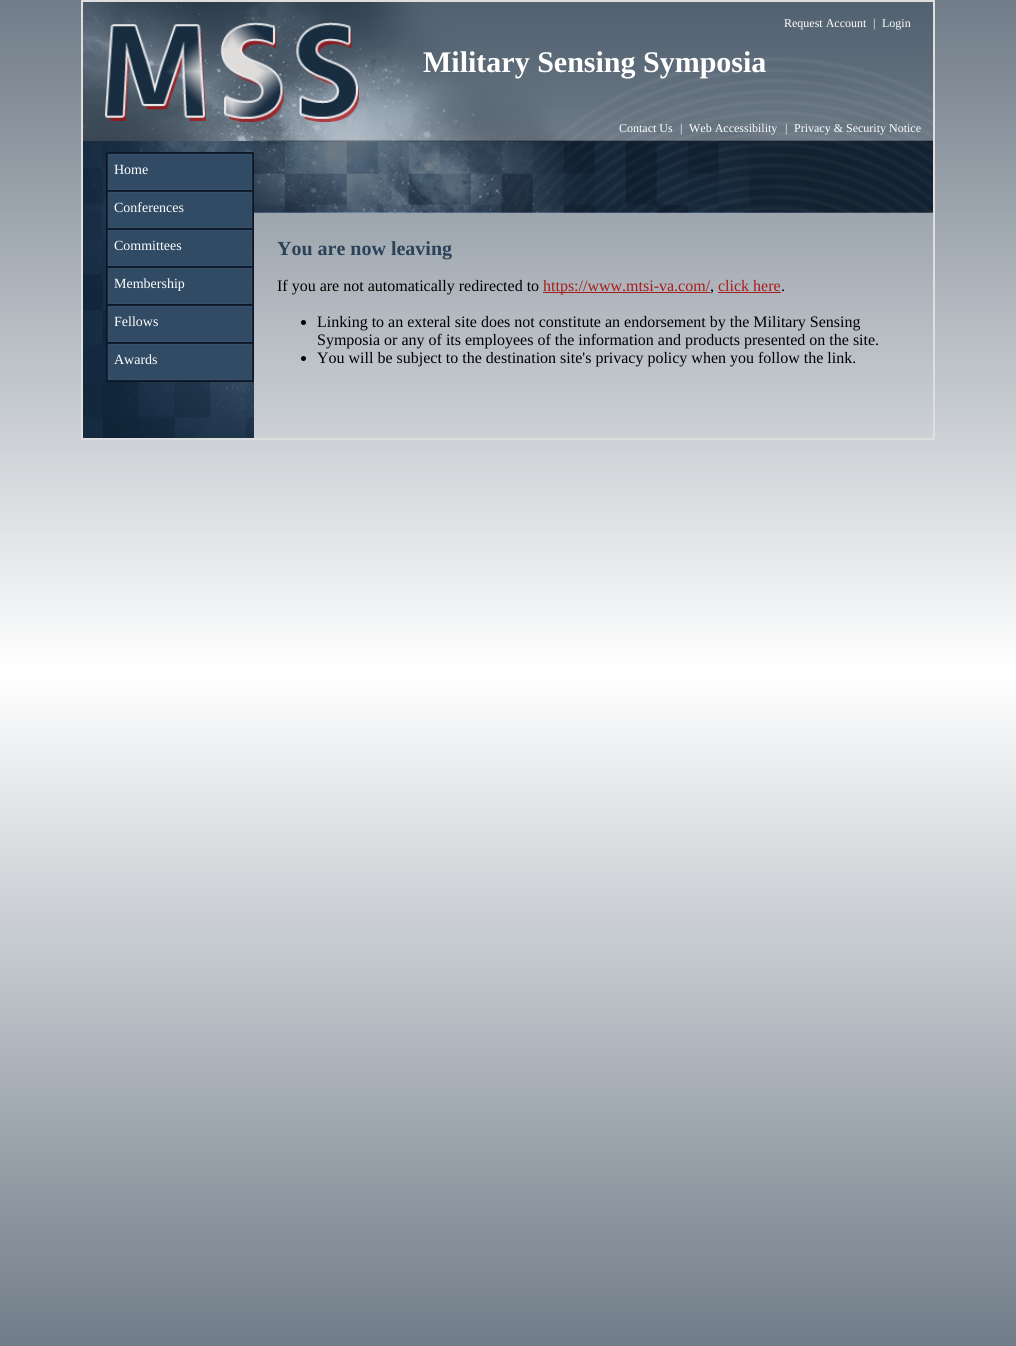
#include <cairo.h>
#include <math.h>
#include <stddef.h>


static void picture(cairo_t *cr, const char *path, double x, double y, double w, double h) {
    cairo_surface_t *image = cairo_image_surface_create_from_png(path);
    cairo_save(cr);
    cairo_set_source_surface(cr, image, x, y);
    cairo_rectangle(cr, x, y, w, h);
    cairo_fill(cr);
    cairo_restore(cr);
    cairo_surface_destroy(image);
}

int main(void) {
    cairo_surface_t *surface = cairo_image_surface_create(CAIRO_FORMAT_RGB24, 1016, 1346);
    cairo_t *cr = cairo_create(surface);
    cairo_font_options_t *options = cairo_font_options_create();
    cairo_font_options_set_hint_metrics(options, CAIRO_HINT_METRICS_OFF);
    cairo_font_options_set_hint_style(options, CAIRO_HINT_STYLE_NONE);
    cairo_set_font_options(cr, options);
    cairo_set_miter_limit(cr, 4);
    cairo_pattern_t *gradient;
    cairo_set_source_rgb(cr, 1, 1, 1);
    cairo_paint(cr);
    gradient = cairo_pattern_create_linear(508, 0, 508, 1346);
    cairo_pattern_add_color_stop_rgba(gradient, 0, 0.439, 0.486, 0.533, 1);
    cairo_pattern_add_color_stop_rgba(gradient, 0.5, 1, 1, 1, 1);
    cairo_pattern_add_color_stop_rgba(gradient, 1, 0.439, 0.486, 0.533, 1);
    cairo_set_source(cr, gradient);
    cairo_pattern_destroy(gradient);
    cairo_rectangle(cr, 0, 0, 1016, 1346);
    cairo_fill(cr);
    cairo_rectangle(cr, 82, 1, 852, 438);
    cairo_set_source_rgb(cr, 0.871, 0.871, 0.871);
    cairo_stroke(cr);
    picture(cr, "img1.png", 83, 2, 850, 211);
    picture(cr, "img2.png", 105, 22, 254, 100);
    cairo_select_font_face(cr, "Liberation Serif", CAIRO_FONT_SLANT_NORMAL, CAIRO_FONT_WEIGHT_NORMAL);
    cairo_set_font_size(cr, 12);
    cairo_set_source_rgb(cr, 1, 1, 1);
    cairo_move_to(cr, 784, 27);
    cairo_show_text(cr, "Request Account");
    cairo_move_to(cr, 873, 27);
    cairo_show_text(cr, "|");
    cairo_move_to(cr, 882, 27);
    cairo_show_text(cr, "Login");
    cairo_select_font_face(cr, "Liberation Serif", CAIRO_FONT_SLANT_NORMAL, CAIRO_FONT_WEIGHT_BOLD);
    cairo_set_font_size(cr, 30);
    cairo_move_to(cr, 423, 72);
    cairo_show_text(cr, "Military Sensing Symposia");
    cairo_select_font_face(cr, "Liberation Serif", CAIRO_FONT_SLANT_NORMAL, CAIRO_FONT_WEIGHT_NORMAL);
    cairo_set_font_size(cr, 12);
    cairo_move_to(cr, 619, 132);
    cairo_show_text(cr, "Contact Us");
    cairo_move_to(cr, 680, 132);
    cairo_show_text(cr, "|");
    cairo_move_to(cr, 689, 132);
    cairo_show_text(cr, "Web Accessibility");
    cairo_move_to(cr, 785, 132);
    cairo_show_text(cr, "|");
    cairo_move_to(cr, 794, 132);
    cairo_show_text(cr, "Privacy & Security Notice");
    picture(cr, "img3.png", 83, 141, 171, 297);
    picture(cr, "img4.png", 106, 152, 148, 38);
    cairo_set_font_size(cr, 14);
    cairo_move_to(cr, 114, 174);
    cairo_show_text(cr, "Home");
    picture(cr, "img4.png", 106, 190, 148, 38);
    cairo_move_to(cr, 114, 212);
    cairo_show_text(cr, "Conferences");
    picture(cr, "img4.png", 106, 228, 148, 38);
    cairo_move_to(cr, 114, 250);
    cairo_show_text(cr, "Committees");
    picture(cr, "img4.png", 106, 266, 148, 38);
    cairo_move_to(cr, 114, 288);
    cairo_show_text(cr, "Membership");
    picture(cr, "img4.png", 106, 304, 148, 38);
    cairo_move_to(cr, 114, 326);
    cairo_show_text(cr, "Fellows");
    picture(cr, "img5.png", 106, 342, 148, 40);
    cairo_move_to(cr, 114, 364);
    cairo_show_text(cr, "Awards");
    cairo_select_font_face(cr, "Liberation Serif", CAIRO_FONT_SLANT_NORMAL, CAIRO_FONT_WEIGHT_BOLD);
    cairo_set_font_size(cr, 20);
    cairo_set_source_rgb(cr, 0.169, 0.259, 0.349);
    cairo_move_to(cr, 277, 255);
    cairo_show_text(cr, "You are now leaving");
    cairo_select_font_face(cr, "Liberation Serif", CAIRO_FONT_SLANT_NORMAL, CAIRO_FONT_WEIGHT_NORMAL);
    cairo_set_font_size(cr, 16);
    cairo_set_source_rgb(cr, 0, 0, 0);
    cairo_move_to(cr, 277, 291);
    cairo_show_text(cr, "If you are not automatically redirected to");
    cairo_set_source_rgb(cr, 0.655, 0.11, 0.11);
    cairo_rectangle(cr, 543, 292, 167, 1);
    cairo_fill(cr);
    cairo_move_to(cr, 543, 291);
    cairo_show_text(cr, "https://www.mtsi-va.com/");
    cairo_set_source_rgb(cr, 0, 0, 0);
    cairo_move_to(cr, 710, 291);
    cairo_show_text(cr, ",");
    cairo_set_source_rgb(cr, 0.655, 0.11, 0.11);
    cairo_move_to(cr, 718, 291);
    cairo_show_text(cr, "click here");
    cairo_rectangle(cr, 718, 292, 63, 1);
    cairo_fill(cr);
    cairo_set_source_rgb(cr, 0, 0, 0);
    cairo_move_to(cr, 781, 291);
    cairo_show_text(cr, ".");
    cairo_new_path(cr);
    cairo_arc(cr, 303.5, 322.5, 2.5, 0, 2 * M_PI);
    cairo_fill(cr);
    cairo_move_to(cr, 317, 327);
    cairo_show_text(cr, "Linking to an exteral site does not constitute an endorsement by the Military Sensing");
    cairo_move_to(cr, 317, 345);
    cairo_show_text(cr, "Symposia or any of its employees of the information and products presented on the site.");
    cairo_new_path(cr);
    cairo_arc(cr, 303.5, 358.5, 2.5, 0, 2 * M_PI);
    cairo_fill(cr);
    cairo_move_to(cr, 317, 363);
    cairo_show_text(cr, "You will be subject to the destination site's privacy policy when you follow the link.");
    cairo_surface_write_to_png(surface, "page.png");
    cairo_font_options_destroy(options);
    cairo_destroy(cr);
    cairo_surface_destroy(surface);
    return 0;
}
